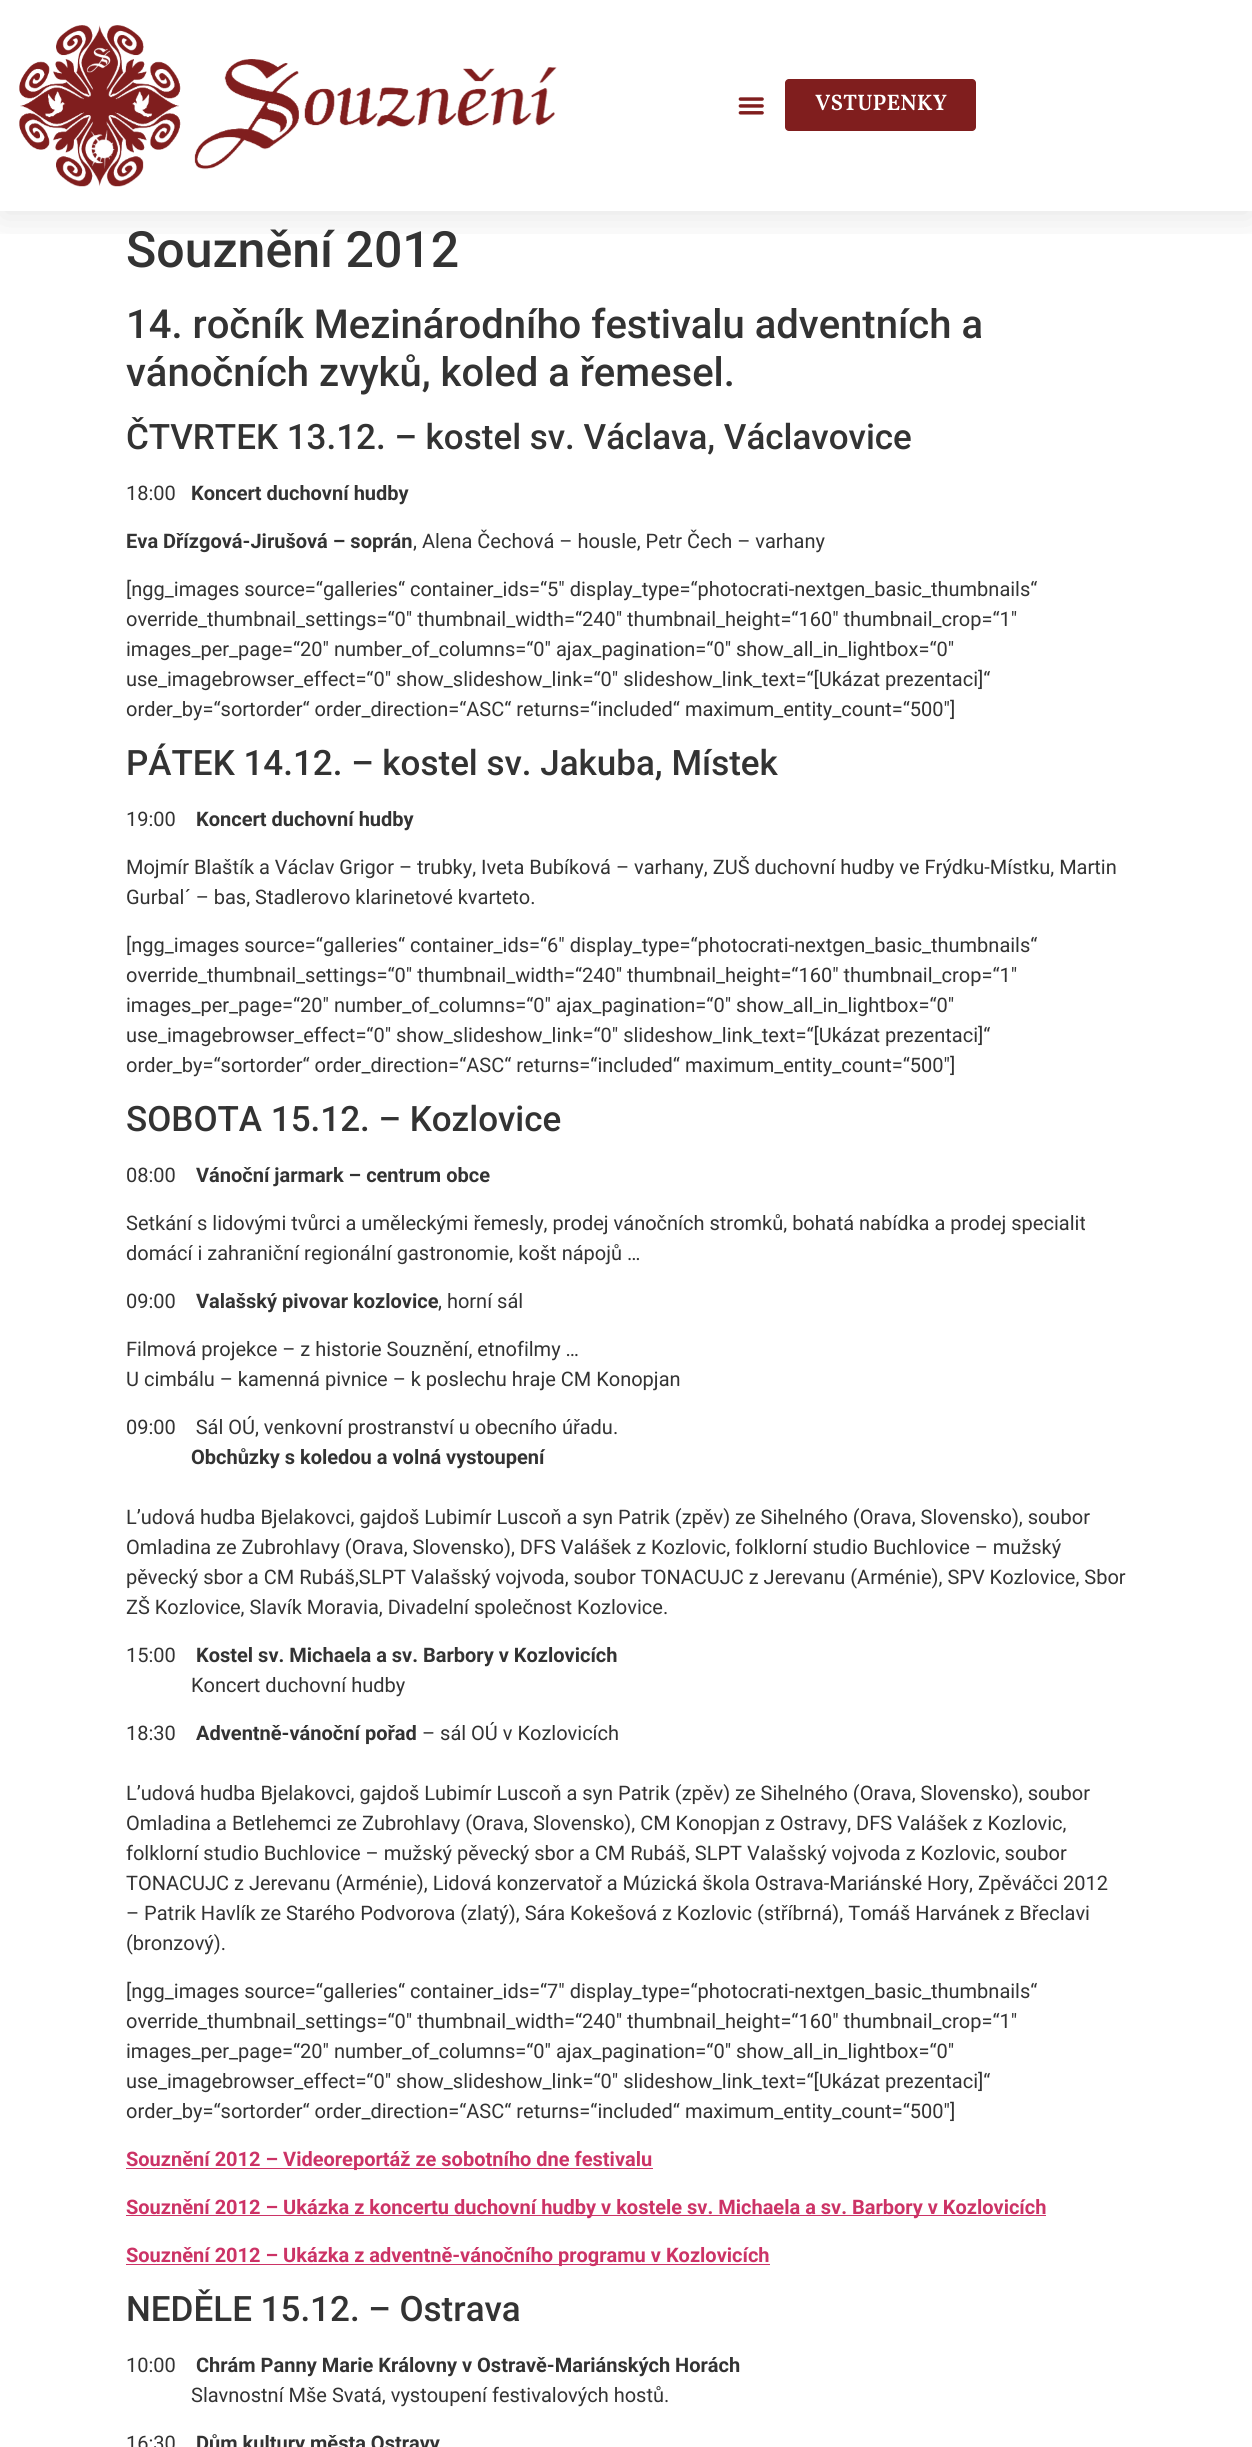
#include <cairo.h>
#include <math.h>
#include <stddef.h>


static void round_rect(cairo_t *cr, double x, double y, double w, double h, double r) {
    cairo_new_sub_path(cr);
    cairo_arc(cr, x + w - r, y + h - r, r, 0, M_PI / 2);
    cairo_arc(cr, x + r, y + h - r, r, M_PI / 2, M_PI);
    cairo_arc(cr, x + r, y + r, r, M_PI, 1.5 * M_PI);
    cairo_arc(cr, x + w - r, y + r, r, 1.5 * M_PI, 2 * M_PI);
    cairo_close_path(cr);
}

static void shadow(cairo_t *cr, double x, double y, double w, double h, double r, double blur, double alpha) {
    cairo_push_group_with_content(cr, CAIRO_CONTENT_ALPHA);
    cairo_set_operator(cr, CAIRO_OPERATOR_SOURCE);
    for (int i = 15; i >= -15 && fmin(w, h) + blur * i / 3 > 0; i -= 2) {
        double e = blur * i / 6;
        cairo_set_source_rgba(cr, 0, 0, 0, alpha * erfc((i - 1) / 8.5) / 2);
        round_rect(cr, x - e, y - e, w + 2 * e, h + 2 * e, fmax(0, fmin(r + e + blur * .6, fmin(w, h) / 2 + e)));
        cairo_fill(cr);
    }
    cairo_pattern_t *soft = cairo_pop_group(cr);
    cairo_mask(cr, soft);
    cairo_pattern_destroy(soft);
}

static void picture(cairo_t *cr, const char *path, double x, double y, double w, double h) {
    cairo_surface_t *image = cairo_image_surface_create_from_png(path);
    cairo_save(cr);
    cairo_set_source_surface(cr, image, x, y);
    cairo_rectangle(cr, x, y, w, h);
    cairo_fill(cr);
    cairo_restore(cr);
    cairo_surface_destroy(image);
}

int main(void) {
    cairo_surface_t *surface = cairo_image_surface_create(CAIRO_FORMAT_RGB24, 1252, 2447);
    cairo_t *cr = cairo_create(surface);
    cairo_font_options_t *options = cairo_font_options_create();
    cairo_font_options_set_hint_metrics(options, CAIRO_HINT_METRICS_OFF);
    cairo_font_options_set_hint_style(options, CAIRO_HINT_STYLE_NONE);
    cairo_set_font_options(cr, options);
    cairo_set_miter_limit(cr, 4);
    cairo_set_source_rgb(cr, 1, 1, 1);
    cairo_paint(cr);
    cairo_save(cr);
    cairo_rectangle(cr, 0, 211, 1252, 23);
    cairo_clip(cr);
    cairo_set_source_rgb(cr, 0, 0, 0);
    shadow(cr, 0, 6, 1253, 212, 0, 19, 0.1);
    cairo_restore(cr);
    picture(cr, "img1.png", 19, 25, 538, 162);
    picture(cr, "img2.png", 738, 97, 26, 18);
    cairo_set_source_rgb(cr, 0.502, 0.118, 0.118);
    round_rect(cr, 785, 79, 191, 52, 4);
    cairo_fill(cr);
    cairo_select_font_face(cr, "Vollkorn SemiBold", CAIRO_FONT_SLANT_NORMAL, CAIRO_FONT_WEIGHT_NORMAL);
    cairo_set_font_size(cr, 22.5);
    cairo_set_source_rgb(cr, 1, 1, 1);
    cairo_move_to(cr, 815, 110);
    cairo_show_text(cr, "VSTUPENKY");
    cairo_select_font_face(cr, "Roboto Medium", CAIRO_FONT_SLANT_NORMAL, CAIRO_FONT_WEIGHT_NORMAL);
    cairo_set_font_size(cr, 50);
    cairo_set_source_rgb(cr, 0.2, 0.2, 0.2);
    cairo_move_to(cr, 126, 267);
    cairo_show_text(cr, "Souznění 2012");
    cairo_set_font_size(cr, 40);
    cairo_move_to(cr, 126, 338);
    cairo_show_text(cr, "14. ročník Mezinárodního festivalu adventních a");
    cairo_move_to(cr, 126, 386);
    cairo_show_text(cr, "vánočních zvyků, koled a řemesel.");
    cairo_set_font_size(cr, 35);
    cairo_move_to(cr, 126, 449);
    cairo_show_text(cr, "ČTVRTEK 13.12. – kostel sv. Václava, Václavovice");
    cairo_select_font_face(cr, "Roboto", CAIRO_FONT_SLANT_NORMAL, CAIRO_FONT_WEIGHT_NORMAL);
    cairo_set_font_size(cr, 20);
    cairo_move_to(cr, 126, 500);
    cairo_show_text(cr, "18:00");
    cairo_select_font_face(cr, "Roboto", CAIRO_FONT_SLANT_NORMAL, CAIRO_FONT_WEIGHT_BOLD);
    cairo_move_to(cr, 191, 500);
    cairo_show_text(cr, "Koncert duchovní hudby");
    cairo_move_to(cr, 126, 548);
    cairo_show_text(cr, "Eva Dřízgová-Jirušová – soprán");
    cairo_select_font_face(cr, "Roboto", CAIRO_FONT_SLANT_NORMAL, CAIRO_FONT_WEIGHT_NORMAL);
    cairo_move_to(cr, 413, 548);
    cairo_show_text(cr, ", Alena Čechová – housle, Petr Čech – varhany");
    cairo_move_to(cr, 126, 596);
    cairo_show_text(cr, "[ngg_images source=“galleries“ container_ids=“5″ display_type=“photocrati-nextgen_basic_thumbnails“");
    cairo_move_to(cr, 126, 626);
    cairo_show_text(cr, "override_thumbnail_settings=“0″ thumbnail_width=“240″ thumbnail_height=“160″ thumbnail_crop=“1″");
    cairo_move_to(cr, 126, 656);
    cairo_show_text(cr, "images_per_page=“20″ number_of_columns=“0″ ajax_pagination=“0″ show_all_in_lightbox=“0″");
    cairo_move_to(cr, 126, 686);
    cairo_show_text(cr, "use_imagebrowser_effect=“0″ show_slideshow_link=“0″ slideshow_link_text=“[Ukázat prezentaci]“");
    cairo_move_to(cr, 126, 716);
    cairo_show_text(cr, "order_by=“sortorder“ order_direction=“ASC“ returns=“included“ maximum_entity_count=“500″]");
    cairo_select_font_face(cr, "Roboto Medium", CAIRO_FONT_SLANT_NORMAL, CAIRO_FONT_WEIGHT_NORMAL);
    cairo_set_font_size(cr, 35);
    cairo_move_to(cr, 126, 775);
    cairo_show_text(cr, "PÁTEK 14.12. – kostel sv. Jakuba, Místek");
    cairo_select_font_face(cr, "Roboto", CAIRO_FONT_SLANT_NORMAL, CAIRO_FONT_WEIGHT_NORMAL);
    cairo_set_font_size(cr, 20);
    cairo_move_to(cr, 126, 826);
    cairo_show_text(cr, "19:00");
    cairo_select_font_face(cr, "Roboto", CAIRO_FONT_SLANT_NORMAL, CAIRO_FONT_WEIGHT_BOLD);
    cairo_move_to(cr, 196, 826);
    cairo_show_text(cr, "Koncert duchovní hudby");
    cairo_select_font_face(cr, "Roboto", CAIRO_FONT_SLANT_NORMAL, CAIRO_FONT_WEIGHT_NORMAL);
    cairo_move_to(cr, 126, 874);
    cairo_show_text(cr, "Mojmír Blaštík a Václav Grigor – trubky, Iveta Bubíková – varhany, ZUŠ duchovní hudby ve Frýdku-Místku, Martin");
    cairo_move_to(cr, 126, 904);
    cairo_show_text(cr, "Gurbal´ – bas, Stadlerovo klarinetové kvarteto.");
    cairo_move_to(cr, 126, 952);
    cairo_show_text(cr, "[ngg_images source=“galleries“ container_ids=“6″ display_type=“photocrati-nextgen_basic_thumbnails“");
    cairo_move_to(cr, 126, 982);
    cairo_show_text(cr, "override_thumbnail_settings=“0″ thumbnail_width=“240″ thumbnail_height=“160″ thumbnail_crop=“1″");
    cairo_move_to(cr, 126, 1012);
    cairo_show_text(cr, "images_per_page=“20″ number_of_columns=“0″ ajax_pagination=“0″ show_all_in_lightbox=“0″");
    cairo_move_to(cr, 126, 1042);
    cairo_show_text(cr, "use_imagebrowser_effect=“0″ show_slideshow_link=“0″ slideshow_link_text=“[Ukázat prezentaci]“");
    cairo_move_to(cr, 126, 1072);
    cairo_show_text(cr, "order_by=“sortorder“ order_direction=“ASC“ returns=“included“ maximum_entity_count=“500″]");
    cairo_select_font_face(cr, "Roboto Medium", CAIRO_FONT_SLANT_NORMAL, CAIRO_FONT_WEIGHT_NORMAL);
    cairo_set_font_size(cr, 35);
    cairo_move_to(cr, 126, 1131);
    cairo_show_text(cr, "SOBOTA 15.12. – Kozlovice");
    cairo_select_font_face(cr, "Roboto", CAIRO_FONT_SLANT_NORMAL, CAIRO_FONT_WEIGHT_NORMAL);
    cairo_set_font_size(cr, 20);
    cairo_move_to(cr, 126, 1182);
    cairo_show_text(cr, "08:00");
    cairo_select_font_face(cr, "Roboto", CAIRO_FONT_SLANT_NORMAL, CAIRO_FONT_WEIGHT_BOLD);
    cairo_move_to(cr, 196, 1182);
    cairo_show_text(cr, "Vánoční jarmark – centrum obce");
    cairo_select_font_face(cr, "Roboto", CAIRO_FONT_SLANT_NORMAL, CAIRO_FONT_WEIGHT_NORMAL);
    cairo_move_to(cr, 126, 1230);
    cairo_show_text(cr, "Setkání s lidovými tvůrci a uměleckými řemesly, prodej vánočních stromků, bohatá nabídka a prodej specialit");
    cairo_move_to(cr, 126, 1260);
    cairo_show_text(cr, "domácí i zahraniční regionální gastronomie, košt nápojů …");
    cairo_move_to(cr, 126, 1308);
    cairo_show_text(cr, "09:00");
    cairo_select_font_face(cr, "Roboto", CAIRO_FONT_SLANT_NORMAL, CAIRO_FONT_WEIGHT_BOLD);
    cairo_move_to(cr, 196, 1308);
    cairo_show_text(cr, "Valašský pivovar kozlovice");
    cairo_select_font_face(cr, "Roboto", CAIRO_FONT_SLANT_NORMAL, CAIRO_FONT_WEIGHT_NORMAL);
    cairo_move_to(cr, 438, 1308);
    cairo_show_text(cr, ", horní sál");
    cairo_move_to(cr, 126, 1356);
    cairo_show_text(cr, "Filmová projekce – z historie Souznění, etnofilmy …");
    cairo_move_to(cr, 126, 1386);
    cairo_show_text(cr, "U cimbálu – kamenná pivnice – k poslechu hraje CM Konopjan");
    cairo_move_to(cr, 126, 1434);
    cairo_show_text(cr, "09:00    Sál OÚ, venkovní prostranství u obecního úřadu.");
    cairo_select_font_face(cr, "Roboto", CAIRO_FONT_SLANT_NORMAL, CAIRO_FONT_WEIGHT_BOLD);
    cairo_move_to(cr, 191, 1464);
    cairo_show_text(cr, "Obchůzky s koledou a volná vystoupení");
    cairo_select_font_face(cr, "Roboto", CAIRO_FONT_SLANT_NORMAL, CAIRO_FONT_WEIGHT_NORMAL);
    cairo_move_to(cr, 126, 1524);
    cairo_show_text(cr, "L’udová hudba Bjelakovci, gajdoš Lubimír Luscoň a syn Patrik (zpěv) ze Sihelného (Orava, Slovensko), soubor");
    cairo_move_to(cr, 126, 1554);
    cairo_show_text(cr, "Omladina ze Zubrohlavy (Orava, Slovensko), DFS Valášek z Kozlovic, folklorní studio Buchlovice – mužský");
    cairo_move_to(cr, 126, 1584);
    cairo_show_text(cr, "pěvecký sbor a CM Rubáš,SLPT Valašský vojvoda, soubor TONACUJC z Jerevanu (Arménie), SPV Kozlovice, Sbor");
    cairo_move_to(cr, 126, 1614);
    cairo_show_text(cr, "ZŠ Kozlovice, Slavík Moravia, Divadelní společnost Kozlovice.");
    cairo_move_to(cr, 126, 1662);
    cairo_show_text(cr, "15:00");
    cairo_select_font_face(cr, "Roboto", CAIRO_FONT_SLANT_NORMAL, CAIRO_FONT_WEIGHT_BOLD);
    cairo_move_to(cr, 196, 1662);
    cairo_show_text(cr, "Kostel sv. Michaela a sv. Barbory v Kozlovicích");
    cairo_select_font_face(cr, "Roboto", CAIRO_FONT_SLANT_NORMAL, CAIRO_FONT_WEIGHT_NORMAL);
    cairo_move_to(cr, 191, 1692);
    cairo_show_text(cr, "Koncert duchovní hudby");
    cairo_move_to(cr, 126, 1740);
    cairo_show_text(cr, "18:30");
    cairo_select_font_face(cr, "Roboto", CAIRO_FONT_SLANT_NORMAL, CAIRO_FONT_WEIGHT_BOLD);
    cairo_move_to(cr, 196, 1740);
    cairo_show_text(cr, "Adventně-vánoční pořad");
    cairo_select_font_face(cr, "Roboto", CAIRO_FONT_SLANT_NORMAL, CAIRO_FONT_WEIGHT_NORMAL);
    cairo_move_to(cr, 422, 1740);
    cairo_show_text(cr, "– sál OÚ v Kozlovicích");
    cairo_move_to(cr, 126, 1800);
    cairo_show_text(cr, "L’udová hudba Bjelakovci, gajdoš Lubimír Luscoň a syn Patrik (zpěv) ze Sihelného (Orava, Slovensko), soubor");
    cairo_move_to(cr, 126, 1830);
    cairo_show_text(cr, "Omladina a Betlehemci ze Zubrohlavy (Orava, Slovensko), CM Konopjan z Ostravy, DFS Valášek z Kozlovic,");
    cairo_move_to(cr, 126, 1860);
    cairo_show_text(cr, "folklorní studio Buchlovice – mužský pěvecký sbor a CM Rubáš, SLPT Valašský vojvoda z Kozlovic, soubor");
    cairo_move_to(cr, 126, 1890);
    cairo_show_text(cr, "TONACUJC z Jerevanu (Arménie), Lidová konzervatoř a Múzická škola Ostrava-Mariánské Hory, Zpěváčci 2012");
    cairo_move_to(cr, 126, 1920);
    cairo_show_text(cr, "– Patrik Havlík ze Starého Podvorova (zlatý), Sára Kokešová z Kozlovic (stříbrná), Tomáš Harvánek z Břeclavi");
    cairo_move_to(cr, 126, 1950);
    cairo_show_text(cr, "(bronzový).");
    cairo_move_to(cr, 126, 1998);
    cairo_show_text(cr, "[ngg_images source=“galleries“ container_ids=“7″ display_type=“photocrati-nextgen_basic_thumbnails“");
    cairo_move_to(cr, 126, 2028);
    cairo_show_text(cr, "override_thumbnail_settings=“0″ thumbnail_width=“240″ thumbnail_height=“160″ thumbnail_crop=“1″");
    cairo_move_to(cr, 126, 2058);
    cairo_show_text(cr, "images_per_page=“20″ number_of_columns=“0″ ajax_pagination=“0″ show_all_in_lightbox=“0″");
    cairo_move_to(cr, 126, 2088);
    cairo_show_text(cr, "use_imagebrowser_effect=“0″ show_slideshow_link=“0″ slideshow_link_text=“[Ukázat prezentaci]“");
    cairo_move_to(cr, 126, 2118);
    cairo_show_text(cr, "order_by=“sortorder“ order_direction=“ASC“ returns=“included“ maximum_entity_count=“500″]");
    cairo_set_source_rgb(cr, 0.8, 0.2, 0.4);
    cairo_rectangle(cr, 126, 2168, 527, 1);
    cairo_fill(cr);
    cairo_select_font_face(cr, "Roboto", CAIRO_FONT_SLANT_NORMAL, CAIRO_FONT_WEIGHT_BOLD);
    cairo_move_to(cr, 126, 2166);
    cairo_show_text(cr, "Souznění 2012 – Videoreportáž ze sobotního dne festivalu");
    cairo_rectangle(cr, 126, 2215, 920, 1);
    cairo_fill(cr);
    cairo_move_to(cr, 126, 2214);
    cairo_show_text(cr, "Souznění 2012 – Ukázka z koncertu duchovní hudby v kostele sv. Michaela a sv. Barbory v Kozlovicích");
    cairo_rectangle(cr, 126, 2264, 644, 1);
    cairo_fill(cr);
    cairo_move_to(cr, 126, 2262);
    cairo_show_text(cr, "Souznění 2012 – Ukázka z adventně-vánočního programu v Kozlovicích");
    cairo_select_font_face(cr, "Roboto Medium", CAIRO_FONT_SLANT_NORMAL, CAIRO_FONT_WEIGHT_NORMAL);
    cairo_set_font_size(cr, 35);
    cairo_set_source_rgb(cr, 0.2, 0.2, 0.2);
    cairo_move_to(cr, 126, 2321);
    cairo_show_text(cr, "NEDĚLE 15.12. – Ostrava");
    cairo_select_font_face(cr, "Roboto", CAIRO_FONT_SLANT_NORMAL, CAIRO_FONT_WEIGHT_NORMAL);
    cairo_set_font_size(cr, 20);
    cairo_move_to(cr, 126, 2372);
    cairo_show_text(cr, "10:00");
    cairo_select_font_face(cr, "Roboto", CAIRO_FONT_SLANT_NORMAL, CAIRO_FONT_WEIGHT_BOLD);
    cairo_move_to(cr, 196, 2372);
    cairo_show_text(cr, "Chrám Panny Marie Královny v Ostravě-Mariánských Horách");
    cairo_select_font_face(cr, "Roboto", CAIRO_FONT_SLANT_NORMAL, CAIRO_FONT_WEIGHT_NORMAL);
    cairo_move_to(cr, 191, 2402);
    cairo_show_text(cr, "Slavnostní Mše Svatá, vystoupení festivalových hostů.");
    cairo_move_to(cr, 126, 2450);
    cairo_show_text(cr, "16:30");
    cairo_select_font_face(cr, "Roboto", CAIRO_FONT_SLANT_NORMAL, CAIRO_FONT_WEIGHT_BOLD);
    cairo_move_to(cr, 196, 2450);
    cairo_show_text(cr, "Dům kultury města Ostravy");
    cairo_surface_write_to_png(surface, "page.png");
    cairo_font_options_destroy(options);
    cairo_destroy(cr);
    cairo_surface_destroy(surface);
    return 0;
}
